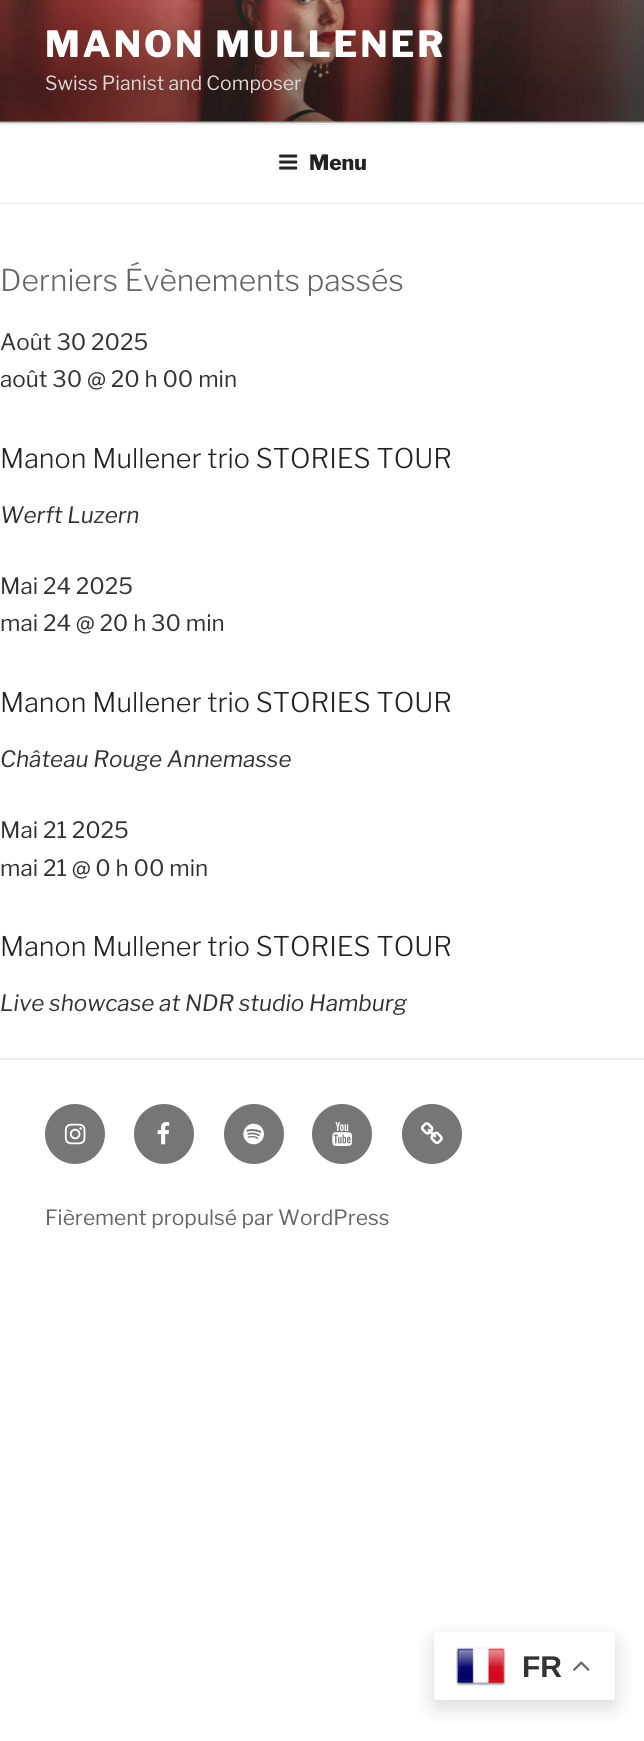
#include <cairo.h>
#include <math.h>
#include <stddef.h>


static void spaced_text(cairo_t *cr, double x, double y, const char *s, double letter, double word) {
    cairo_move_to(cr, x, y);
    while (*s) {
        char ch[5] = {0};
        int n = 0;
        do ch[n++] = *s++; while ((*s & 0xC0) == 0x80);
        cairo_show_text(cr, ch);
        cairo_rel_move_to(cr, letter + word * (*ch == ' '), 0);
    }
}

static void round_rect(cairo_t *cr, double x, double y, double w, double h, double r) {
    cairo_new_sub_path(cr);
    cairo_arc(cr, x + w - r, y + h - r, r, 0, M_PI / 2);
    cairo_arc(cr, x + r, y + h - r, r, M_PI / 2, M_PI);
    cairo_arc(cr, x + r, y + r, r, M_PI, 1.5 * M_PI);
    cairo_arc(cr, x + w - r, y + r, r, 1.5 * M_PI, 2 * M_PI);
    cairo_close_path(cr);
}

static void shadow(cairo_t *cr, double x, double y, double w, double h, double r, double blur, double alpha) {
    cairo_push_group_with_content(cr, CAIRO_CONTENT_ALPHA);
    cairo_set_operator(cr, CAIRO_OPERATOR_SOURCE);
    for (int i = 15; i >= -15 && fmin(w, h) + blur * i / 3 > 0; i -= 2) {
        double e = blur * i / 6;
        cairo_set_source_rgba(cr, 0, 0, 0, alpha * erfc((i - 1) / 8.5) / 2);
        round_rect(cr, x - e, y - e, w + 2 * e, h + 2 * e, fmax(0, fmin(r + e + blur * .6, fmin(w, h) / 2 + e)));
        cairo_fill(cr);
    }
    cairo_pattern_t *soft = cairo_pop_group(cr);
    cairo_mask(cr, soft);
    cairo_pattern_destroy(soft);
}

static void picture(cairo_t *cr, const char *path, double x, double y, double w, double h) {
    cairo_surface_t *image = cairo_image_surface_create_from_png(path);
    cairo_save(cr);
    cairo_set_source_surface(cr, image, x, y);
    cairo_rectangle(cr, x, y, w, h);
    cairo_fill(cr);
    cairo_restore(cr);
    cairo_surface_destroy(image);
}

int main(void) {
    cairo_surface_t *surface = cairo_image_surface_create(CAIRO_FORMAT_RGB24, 644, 1741);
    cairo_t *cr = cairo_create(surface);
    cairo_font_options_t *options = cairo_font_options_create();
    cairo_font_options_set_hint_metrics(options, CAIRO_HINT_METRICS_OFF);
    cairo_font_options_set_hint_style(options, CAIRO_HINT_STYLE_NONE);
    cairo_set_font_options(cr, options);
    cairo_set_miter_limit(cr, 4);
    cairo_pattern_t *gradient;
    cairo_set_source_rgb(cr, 1, 1, 1);
    cairo_paint(cr);
    cairo_set_source_rgb(cr, 0.98, 0.98, 0.98);
    cairo_rectangle(cr, 0, 121, 644, 2);
    cairo_fill(cr);
    picture(cr, "img1.png", 0, 0, 644, 122);
    gradient = cairo_pattern_create_linear(323, 0, 323, 123);
    cairo_pattern_add_color_stop_rgba(gradient, 0, 0, 0, 0, 0);
    cairo_pattern_add_color_stop_rgba(gradient, 0.75, 0, 0, 0, 0.3);
    cairo_pattern_add_color_stop_rgba(gradient, 1, 0, 0, 0, 0.3);
    cairo_set_source(cr, gradient);
    cairo_pattern_destroy(gradient);
    cairo_rectangle(cr, 0, 7, 644, 116);
    cairo_fill(cr);
    cairo_select_font_face(cr, "Libre Franklin Thin", CAIRO_FONT_SLANT_NORMAL, CAIRO_FONT_WEIGHT_NORMAL);
    cairo_set_font_size(cr, 36);
    cairo_set_source_rgb(cr, 1, 1, 1);
    spaced_text(cr, 45, 57, "MANON MULLENER", 2.9, 0);
    cairo_select_font_face(cr, "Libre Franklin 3 Thin", CAIRO_FONT_SLANT_NORMAL, CAIRO_FONT_WEIGHT_NORMAL);
    cairo_set_font_size(cr, 19.5);
    cairo_set_source_rgb(cr, 0.875, 0.835, 0.831);
    cairo_move_to(cr, 45, 90);
    cairo_show_text(cr, "Swiss Pianist and Composer");
    cairo_set_source_rgb(cr, 0.933, 0.933, 0.933);
    cairo_rectangle(cr, 0, 123, 644, 2);
    cairo_fill(cr);
    cairo_rectangle(cr, 0, 203, 644, 1);
    cairo_fill(cr);
    picture(cr, "img2.png", 279, 154, 19, 16);
    cairo_select_font_face(cr, "Libre Franklin Thin", CAIRO_FONT_SLANT_NORMAL, CAIRO_FONT_WEIGHT_NORMAL);
    cairo_set_font_size(cr, 21);
    cairo_set_source_rgb(cr, 0.133, 0.133, 0.133);
    cairo_move_to(cr, 309, 170);
    cairo_show_text(cr, "Menu");
    cairo_select_font_face(cr, "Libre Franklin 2 Thin", CAIRO_FONT_SLANT_NORMAL, CAIRO_FONT_WEIGHT_NORMAL);
    cairo_set_font_size(cr, 30);
    cairo_set_source_rgb(cr, 0.4, 0.4, 0.4);
    cairo_move_to(cr, 0, 291);
    cairo_show_text(cr, "Derniers Évènements passés");
    cairo_select_font_face(cr, "Libre Franklin 3 Thin", CAIRO_FONT_SLANT_NORMAL, CAIRO_FONT_WEIGHT_NORMAL);
    cairo_set_font_size(cr, 22.5);
    cairo_set_source_rgb(cr, 0.2, 0.2, 0.2);
    cairo_move_to(cr, 0, 350);
    cairo_show_text(cr, "Août 30 2025");
    cairo_move_to(cr, 0, 387);
    cairo_show_text(cr, "août 30 @ 20 h 00 min");
    cairo_select_font_face(cr, "Libre Franklin 2 Thin", CAIRO_FONT_SLANT_NORMAL, CAIRO_FONT_WEIGHT_NORMAL);
    cairo_set_font_size(cr, 27);
    cairo_set_source_rgb(cr, 0.133, 0.133, 0.133);
    cairo_move_to(cr, 0, 468);
    cairo_show_text(cr, "Manon Mullener trio STORIES TOUR");
    cairo_select_font_face(cr, "Libre Franklin Thin", CAIRO_FONT_SLANT_ITALIC, CAIRO_FONT_WEIGHT_NORMAL);
    cairo_set_font_size(cr, 22.5);
    cairo_set_source_rgb(cr, 0.2, 0.2, 0.2);
    cairo_move_to(cr, 0, 523);
    cairo_show_text(cr, "Werft Luzern");
    cairo_select_font_face(cr, "Libre Franklin 3 Thin", CAIRO_FONT_SLANT_NORMAL, CAIRO_FONT_WEIGHT_NORMAL);
    cairo_move_to(cr, 0, 594);
    cairo_show_text(cr, "Mai 24 2025");
    cairo_move_to(cr, 0, 631);
    cairo_show_text(cr, "mai 24 @ 20 h 30 min");
    cairo_select_font_face(cr, "Libre Franklin 2 Thin", CAIRO_FONT_SLANT_NORMAL, CAIRO_FONT_WEIGHT_NORMAL);
    cairo_set_font_size(cr, 27);
    cairo_set_source_rgb(cr, 0.133, 0.133, 0.133);
    cairo_move_to(cr, 0, 712);
    cairo_show_text(cr, "Manon Mullener trio STORIES TOUR");
    cairo_select_font_face(cr, "Libre Franklin Thin", CAIRO_FONT_SLANT_ITALIC, CAIRO_FONT_WEIGHT_NORMAL);
    cairo_set_font_size(cr, 22.5);
    cairo_set_source_rgb(cr, 0.2, 0.2, 0.2);
    cairo_move_to(cr, 0, 767);
    cairo_show_text(cr, "Château Rouge Annemasse");
    cairo_select_font_face(cr, "Libre Franklin 3 Thin", CAIRO_FONT_SLANT_NORMAL, CAIRO_FONT_WEIGHT_NORMAL);
    cairo_move_to(cr, 0, 838);
    cairo_show_text(cr, "Mai 21 2025");
    cairo_move_to(cr, 0, 876);
    cairo_show_text(cr, "mai 21 @ 0 h 00 min");
    cairo_select_font_face(cr, "Libre Franklin 2 Thin", CAIRO_FONT_SLANT_NORMAL, CAIRO_FONT_WEIGHT_NORMAL);
    cairo_set_font_size(cr, 27);
    cairo_set_source_rgb(cr, 0.133, 0.133, 0.133);
    cairo_move_to(cr, 0, 956);
    cairo_show_text(cr, "Manon Mullener trio STORIES TOUR");
    cairo_select_font_face(cr, "Libre Franklin Thin", CAIRO_FONT_SLANT_ITALIC, CAIRO_FONT_WEIGHT_NORMAL);
    cairo_set_font_size(cr, 22.5);
    cairo_set_source_rgb(cr, 0.2, 0.2, 0.2);
    cairo_move_to(cr, 0, 1011);
    cairo_show_text(cr, "Live showcase at NDR studio Hamburg");
    cairo_set_source_rgb(cr, 0.933, 0.933, 0.933);
    cairo_rectangle(cr, 0, 1058, 644, 2);
    cairo_fill(cr);
    cairo_set_source_rgb(cr, 0.463, 0.463, 0.463);
    cairo_arc(cr, 75, 1134, 30, 0, 2 * M_PI);
    cairo_fill(cr);
    picture(cr, "img3.png", 64, 1123, 22, 22);
    cairo_arc(cr, 164, 1134, 30, 0, 2 * M_PI);
    cairo_fill(cr);
    picture(cr, "img4.png", 157, 1122, 13, 23);
    cairo_arc(cr, 254, 1134, 30, 0, 2 * M_PI);
    cairo_fill(cr);
    picture(cr, "img5.png", 243, 1123, 21, 22);
    cairo_arc(cr, 342, 1134, 30, 0, 2 * M_PI);
    cairo_fill(cr);
    picture(cr, "img6.png", 332, 1122, 21, 24);
    cairo_arc(cr, 432, 1134, 30, 0, 2 * M_PI);
    cairo_fill(cr);
    picture(cr, "img7.png", 421, 1122, 22, 22);
    cairo_select_font_face(cr, "Libre Franklin 3 Thin", CAIRO_FONT_SLANT_NORMAL, CAIRO_FONT_WEIGHT_NORMAL);
    cairo_set_font_size(cr, 21);
    cairo_set_source_rgb(cr, 0.4, 0.4, 0.4);
    cairo_move_to(cr, 45, 1225);
    cairo_show_text(cr, "Fièrement propulsé par WordPress");
    cairo_set_source_rgb(cr, 0, 0, 0);
    shadow(cr, 434, 1640, 181, 67, 3, 11, 0.15);
    cairo_set_source_rgb(cr, 1, 1, 1);
    round_rect(cr, 434, 1632, 181, 68, 3);
    cairo_fill(cr);
    picture(cr, "img8.png", 456, 1647, 50, 39);
    cairo_select_font_face(cr, "Liberation Sans", CAIRO_FONT_SLANT_NORMAL, CAIRO_FONT_WEIGHT_BOLD);
    cairo_set_font_size(cr, 30);
    cairo_set_source_rgb(cr, 0.2, 0.2, 0.2);
    cairo_move_to(cr, 522, 1677);
    cairo_show_text(cr, "FR");
    picture(cr, "img9.png", 573, 1661, 17, 10);
    cairo_surface_write_to_png(surface, "page.png");
    cairo_font_options_destroy(options);
    cairo_destroy(cr);
    cairo_surface_destroy(surface);
    return 0;
}
